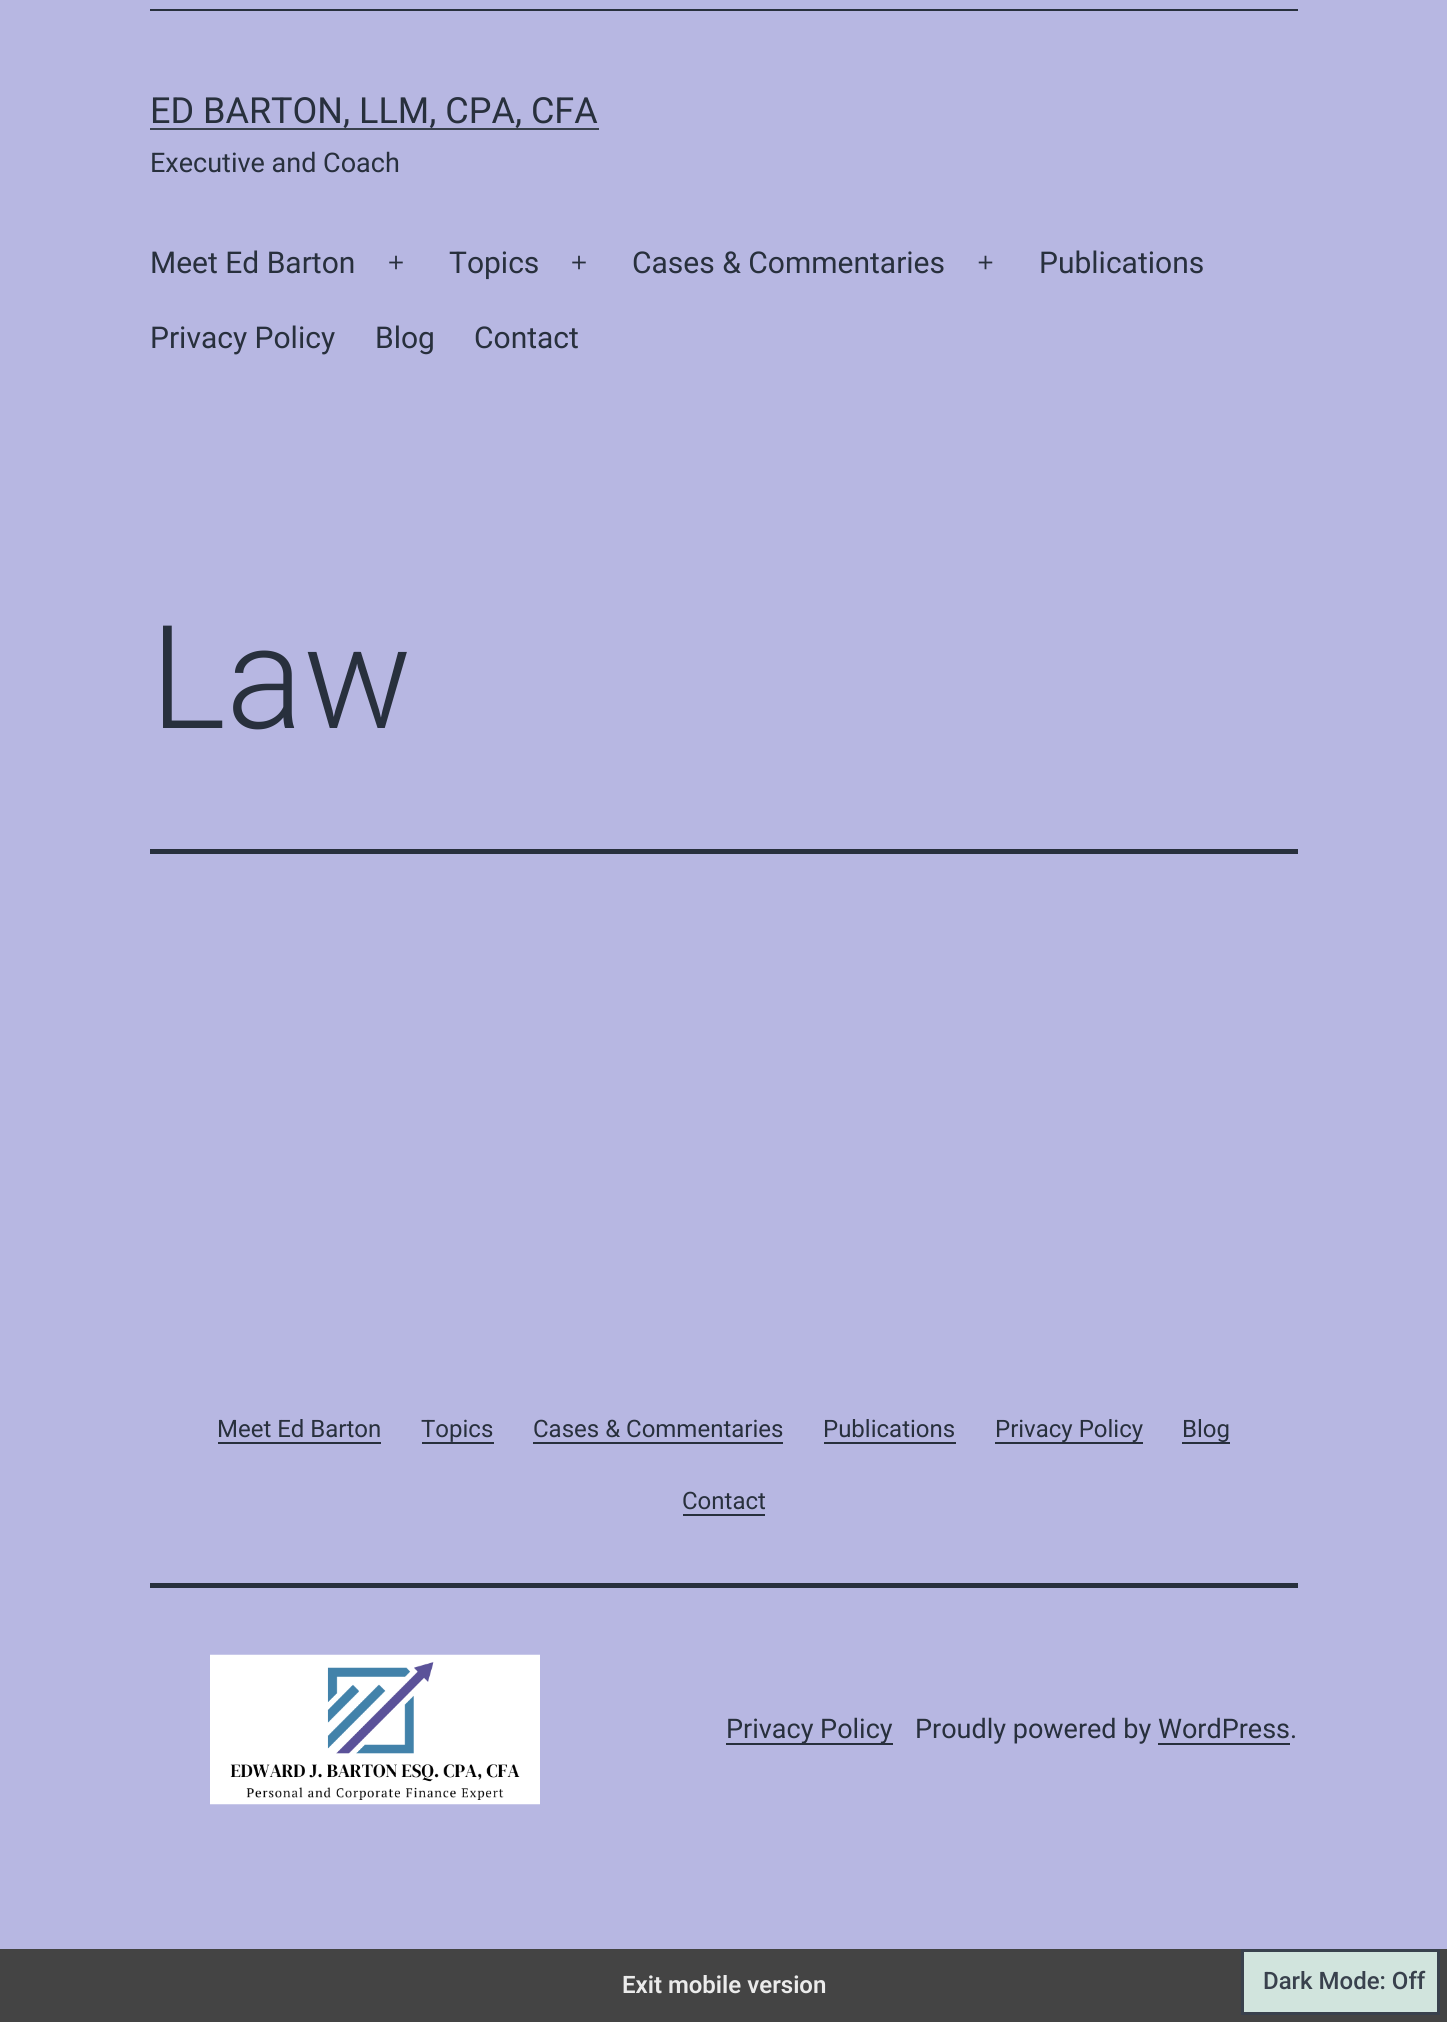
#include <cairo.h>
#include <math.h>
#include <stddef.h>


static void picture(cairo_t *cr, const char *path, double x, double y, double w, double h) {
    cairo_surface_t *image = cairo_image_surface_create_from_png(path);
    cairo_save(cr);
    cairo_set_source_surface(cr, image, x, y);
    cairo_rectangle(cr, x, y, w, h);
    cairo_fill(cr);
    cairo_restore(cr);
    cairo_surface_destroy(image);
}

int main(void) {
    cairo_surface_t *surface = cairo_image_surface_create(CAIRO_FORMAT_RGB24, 1447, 2022);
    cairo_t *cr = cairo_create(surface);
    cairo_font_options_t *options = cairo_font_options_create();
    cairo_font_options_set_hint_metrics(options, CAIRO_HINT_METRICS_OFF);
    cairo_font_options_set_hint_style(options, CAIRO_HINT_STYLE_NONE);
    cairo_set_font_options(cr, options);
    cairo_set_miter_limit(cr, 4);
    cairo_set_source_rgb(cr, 0.718, 0.718, 0.886);
    cairo_paint(cr);
    cairo_set_source_rgb(cr, 0.157, 0.188, 0.239);
    cairo_rectangle(cr, 150, 9, 1148, 2);
    cairo_fill(cr);
    cairo_set_source_rgb(cr, 0.224, 0.255, 0.302);
    cairo_rectangle(cr, 150, 128, 449, 2);
    cairo_fill(cr);
    cairo_select_font_face(cr, "Roboto", CAIRO_FONT_SLANT_NORMAL, CAIRO_FONT_WEIGHT_NORMAL);
    cairo_set_font_size(cr, 36);
    cairo_set_source_rgb(cr, 0.157, 0.188, 0.239);
    cairo_move_to(cr, 150, 123);
    cairo_show_text(cr, "ED BARTON, LLM, CPA, CFA");
    cairo_set_font_size(cr, 27);
    cairo_move_to(cr, 150, 172);
    cairo_show_text(cr, "Executive and Coach");
    cairo_set_font_size(cr, 30);
    cairo_move_to(cr, 150, 273);
    cairo_show_text(cr, "Meet Ed Barton");
    picture(cr, "img1.png", 389, 255, 14, 15);
    cairo_move_to(cr, 449, 273);
    cairo_show_text(cr, "Topics");
    picture(cr, "img1.png", 572, 255, 14, 15);
    cairo_move_to(cr, 632, 273);
    cairo_show_text(cr, "Cases & Commentaries");
    picture(cr, "img2.png", 978, 255, 15, 15);
    cairo_move_to(cr, 1039, 273);
    cairo_show_text(cr, "Publications");
    cairo_move_to(cr, 150, 348);
    cairo_show_text(cr, "Privacy Policy");
    cairo_move_to(cr, 375, 348);
    cairo_show_text(cr, "Blog");
    cairo_move_to(cr, 474, 348);
    cairo_show_text(cr, "Contact");
    cairo_rectangle(cr, 150, 849, 1148, 5);
    cairo_fill(cr);
    cairo_select_font_face(cr, "Roboto Light", CAIRO_FONT_SLANT_NORMAL, CAIRO_FONT_WEIGHT_NORMAL);
    cairo_set_font_size(cr, 144);
    cairo_move_to(cr, 150, 728);
    cairo_show_text(cr, "Law");
    cairo_select_font_face(cr, "Roboto", CAIRO_FONT_SLANT_NORMAL, CAIRO_FONT_WEIGHT_NORMAL);
    cairo_set_font_size(cr, 24);
    cairo_move_to(cr, 217, 1437);
    cairo_show_text(cr, "Meet Ed Barton");
    cairo_rectangle(cr, 218, 1442, 163, 2);
    cairo_fill(cr);
    cairo_move_to(cr, 421, 1437);
    cairo_show_text(cr, "Topics");
    cairo_rectangle(cr, 422, 1442, 72, 2);
    cairo_fill(cr);
    cairo_move_to(cr, 533, 1437);
    cairo_show_text(cr, "Cases & Commentaries");
    cairo_rectangle(cr, 533, 1442, 250, 2);
    cairo_fill(cr);
    cairo_move_to(cr, 823, 1437);
    cairo_show_text(cr, "Publications");
    cairo_rectangle(cr, 824, 1442, 132, 2);
    cairo_fill(cr);
    cairo_rectangle(cr, 995, 1442, 148, 2);
    cairo_fill(cr);
    cairo_move_to(cr, 995, 1437);
    cairo_show_text(cr, "Privacy Policy");
    cairo_move_to(cr, 1182, 1437);
    cairo_show_text(cr, "Blog");
    cairo_rectangle(cr, 1182, 1442, 48, 2);
    cairo_fill(cr);
    cairo_move_to(cr, 682, 1509);
    cairo_show_text(cr, "Contact");
    cairo_rectangle(cr, 683, 1514, 82, 2);
    cairo_fill(cr);
    cairo_rectangle(cr, 150, 1583, 1148, 5);
    cairo_fill(cr);
    picture(cr, "img3.png", 210, 1654, 330, 151);
    cairo_rectangle(cr, 726, 1743, 167, 2);
    cairo_fill(cr);
    cairo_set_font_size(cr, 27);
    cairo_move_to(cr, 726, 1738);
    cairo_show_text(cr, "Privacy Policy");
    cairo_move_to(cr, 915, 1738);
    cairo_show_text(cr, "Proudly powered by WordPress.");
    cairo_rectangle(cr, 1158, 1743, 132, 2);
    cairo_fill(cr);
    cairo_set_source_rgb(cr, 0.267, 0.267, 0.267);
    cairo_rectangle(cr, 0, 1949, 1447, 73);
    cairo_fill(cr);
    cairo_select_font_face(cr, "Roboto SemiBold", CAIRO_FONT_SLANT_NORMAL, CAIRO_FONT_WEIGHT_NORMAL);
    cairo_set_font_size(cr, 24);
    cairo_set_source_rgb(cr, 0.918, 0.918, 0.918);
    cairo_move_to(cr, 622, 1993);
    cairo_show_text(cr, "Exit mobile version");
    cairo_set_source_rgb(cr, 0.82, 0.894, 0.867);
    cairo_rectangle(cr, 1242.5, 1950.5, 196, 63);
    cairo_fill_preserve(cr);
    cairo_set_source_rgb(cr, 0.224, 0.255, 0.302);
    cairo_set_line_width(cr, 3);
    cairo_stroke(cr);
    cairo_select_font_face(cr, "Roboto Medium", CAIRO_FONT_SLANT_NORMAL, CAIRO_FONT_WEIGHT_NORMAL);
    cairo_move_to(cr, 1263, 1989);
    cairo_show_text(cr, "Dark Mode: Off");
    cairo_surface_write_to_png(surface, "page.png");
    cairo_font_options_destroy(options);
    cairo_destroy(cr);
    cairo_surface_destroy(surface);
    return 0;
}
